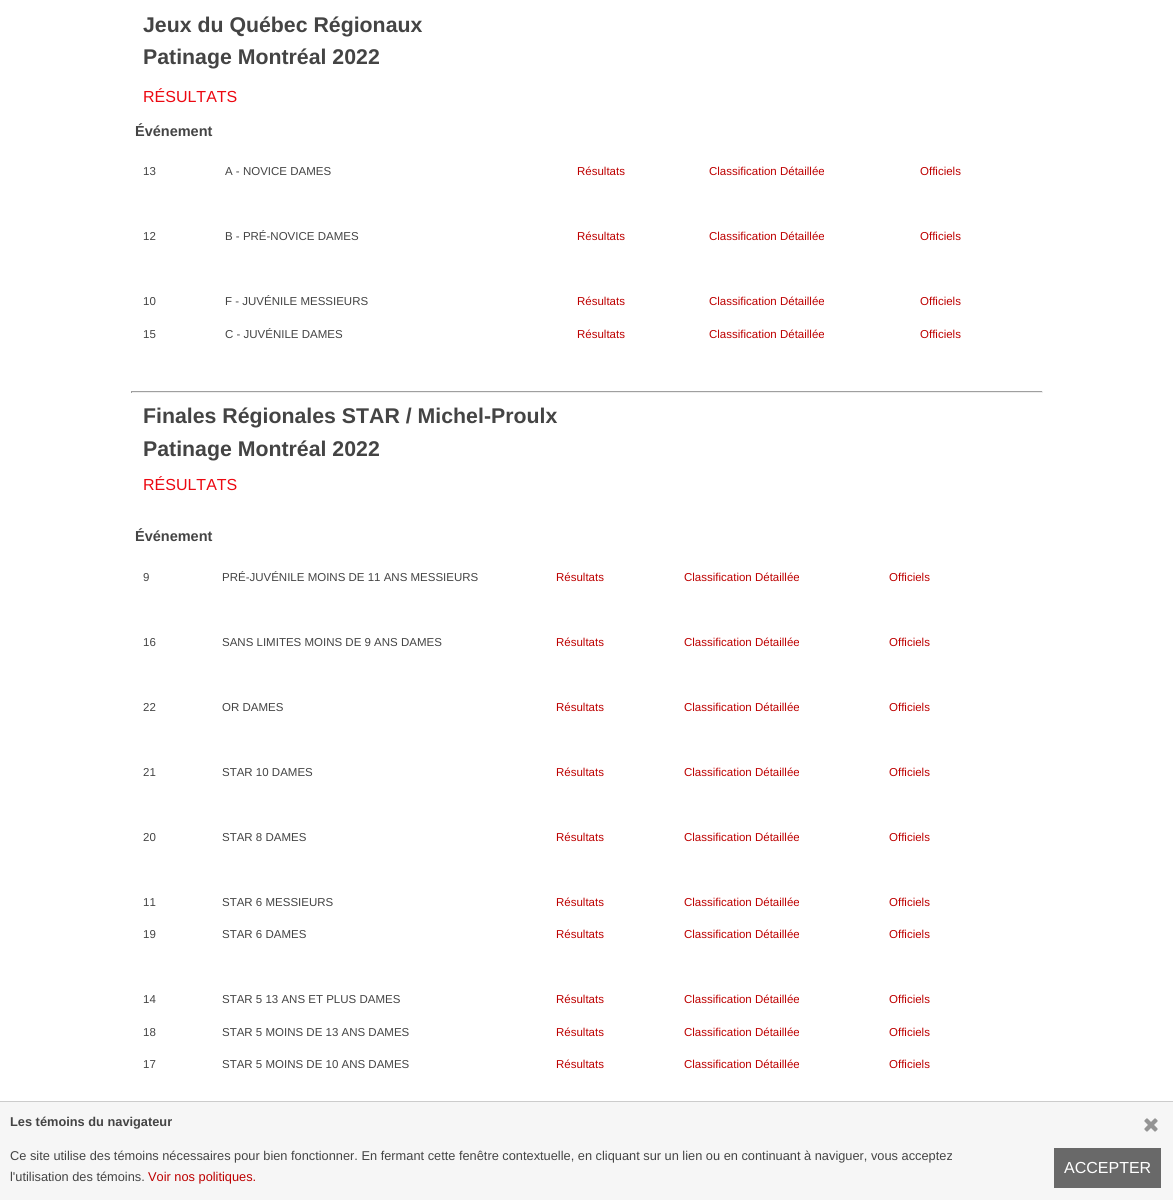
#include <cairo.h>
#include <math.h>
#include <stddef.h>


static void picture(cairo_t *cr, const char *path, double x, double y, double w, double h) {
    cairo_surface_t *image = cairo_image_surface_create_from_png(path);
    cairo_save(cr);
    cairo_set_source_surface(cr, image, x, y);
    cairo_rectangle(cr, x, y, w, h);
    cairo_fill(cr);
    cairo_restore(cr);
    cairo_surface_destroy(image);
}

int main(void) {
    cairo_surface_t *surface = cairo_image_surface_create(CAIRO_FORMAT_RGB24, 1173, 1200);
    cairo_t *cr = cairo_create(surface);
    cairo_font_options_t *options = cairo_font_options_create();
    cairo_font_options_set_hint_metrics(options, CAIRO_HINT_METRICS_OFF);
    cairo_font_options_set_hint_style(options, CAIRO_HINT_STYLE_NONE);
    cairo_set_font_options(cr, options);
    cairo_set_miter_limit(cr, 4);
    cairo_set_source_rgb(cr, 1, 1, 1);
    cairo_paint(cr);
    cairo_select_font_face(cr, "Liberation Sans", CAIRO_FONT_SLANT_NORMAL, CAIRO_FONT_WEIGHT_BOLD);
    cairo_set_font_size(cr, 21.3);
    cairo_set_source_rgb(cr, 0.267, 0.267, 0.267);
    cairo_move_to(cr, 143, 32);
    cairo_show_text(cr, "Jeux du Québec Régionaux");
    cairo_move_to(cr, 143, 64);
    cairo_show_text(cr, "Patinage Montréal 2022");
    cairo_select_font_face(cr, "Liberation Sans", CAIRO_FONT_SLANT_NORMAL, CAIRO_FONT_WEIGHT_NORMAL);
    cairo_set_font_size(cr, 16);
    cairo_set_source_rgb(cr, 0.922, 0.035, 0.067);
    cairo_move_to(cr, 143, 102);
    cairo_show_text(cr, "RÉSULTATS");
    cairo_select_font_face(cr, "Liberation Sans", CAIRO_FONT_SLANT_NORMAL, CAIRO_FONT_WEIGHT_BOLD);
    cairo_set_font_size(cr, 14.5);
    cairo_set_source_rgb(cr, 0.267, 0.267, 0.267);
    cairo_move_to(cr, 135, 136);
    cairo_show_text(cr, "Événement");
    cairo_select_font_face(cr, "Liberation Sans", CAIRO_FONT_SLANT_NORMAL, CAIRO_FONT_WEIGHT_NORMAL);
    cairo_set_font_size(cr, 11.5);
    cairo_move_to(cr, 143, 175);
    cairo_show_text(cr, "13");
    cairo_move_to(cr, 225, 175);
    cairo_show_text(cr, "A - NOVICE DAMES");
    cairo_set_source_rgb(cr, 0.741, 0, 0);
    cairo_move_to(cr, 577, 175);
    cairo_show_text(cr, "Résultats");
    cairo_move_to(cr, 709, 175);
    cairo_show_text(cr, "Classification Détaillée");
    cairo_move_to(cr, 920, 175);
    cairo_show_text(cr, "Officiels");
    cairo_set_source_rgb(cr, 0.267, 0.267, 0.267);
    cairo_move_to(cr, 143, 240);
    cairo_show_text(cr, "12");
    cairo_move_to(cr, 225, 240);
    cairo_show_text(cr, "B - PRÉ-NOVICE DAMES");
    cairo_set_source_rgb(cr, 0.741, 0, 0);
    cairo_move_to(cr, 577, 240);
    cairo_show_text(cr, "Résultats");
    cairo_move_to(cr, 709, 240);
    cairo_show_text(cr, "Classification Détaillée");
    cairo_move_to(cr, 920, 240);
    cairo_show_text(cr, "Officiels");
    cairo_set_source_rgb(cr, 0.267, 0.267, 0.267);
    cairo_move_to(cr, 143, 305);
    cairo_show_text(cr, "10");
    cairo_move_to(cr, 225, 305);
    cairo_show_text(cr, "F - JUVÉNILE MESSIEURS");
    cairo_set_source_rgb(cr, 0.741, 0, 0);
    cairo_move_to(cr, 577, 305);
    cairo_show_text(cr, "Résultats");
    cairo_move_to(cr, 709, 305);
    cairo_show_text(cr, "Classification Détaillée");
    cairo_move_to(cr, 920, 305);
    cairo_show_text(cr, "Officiels");
    cairo_set_source_rgb(cr, 0.267, 0.267, 0.267);
    cairo_move_to(cr, 143, 338);
    cairo_show_text(cr, "15");
    cairo_move_to(cr, 225, 338);
    cairo_show_text(cr, "C - JUVÉNILE DAMES");
    cairo_set_source_rgb(cr, 0.741, 0, 0);
    cairo_move_to(cr, 577, 338);
    cairo_show_text(cr, "Résultats");
    cairo_move_to(cr, 709, 338);
    cairo_show_text(cr, "Classification Détaillée");
    cairo_move_to(cr, 920, 338);
    cairo_show_text(cr, "Officiels");
    cairo_set_source_rgb(cr, 0.624, 0.624, 0.624);
    cairo_rectangle(cr, 131, 391, 912, 1);
    cairo_fill(cr);
    cairo_set_source_rgb(cr, 0.933, 0.933, 0.933);
    cairo_rectangle(cr, 1042, 391, 1, 2);
    cairo_fill(cr);
    cairo_rectangle(cr, 131, 392, 912, 1);
    cairo_fill(cr);
    cairo_set_source_rgb(cr, 0.624, 0.624, 0.624);
    cairo_rectangle(cr, 131, 391, 1, 2);
    cairo_fill(cr);
    cairo_select_font_face(cr, "Liberation Sans", CAIRO_FONT_SLANT_NORMAL, CAIRO_FONT_WEIGHT_BOLD);
    cairo_set_font_size(cr, 21.3);
    cairo_set_source_rgb(cr, 0.267, 0.267, 0.267);
    cairo_move_to(cr, 143, 423);
    cairo_show_text(cr, "Finales Régionales STAR / Michel-Proulx");
    cairo_move_to(cr, 143, 456);
    cairo_show_text(cr, "Patinage Montréal 2022");
    cairo_select_font_face(cr, "Liberation Sans", CAIRO_FONT_SLANT_NORMAL, CAIRO_FONT_WEIGHT_NORMAL);
    cairo_set_font_size(cr, 16);
    cairo_set_source_rgb(cr, 0.922, 0.035, 0.067);
    cairo_move_to(cr, 143, 490);
    cairo_show_text(cr, "RÉSULTATS");
    cairo_select_font_face(cr, "Liberation Sans", CAIRO_FONT_SLANT_NORMAL, CAIRO_FONT_WEIGHT_BOLD);
    cairo_set_font_size(cr, 14.5);
    cairo_set_source_rgb(cr, 0.267, 0.267, 0.267);
    cairo_move_to(cr, 135, 541);
    cairo_show_text(cr, "Événement");
    cairo_select_font_face(cr, "Liberation Sans", CAIRO_FONT_SLANT_NORMAL, CAIRO_FONT_WEIGHT_NORMAL);
    cairo_set_font_size(cr, 11.5);
    cairo_move_to(cr, 143, 581);
    cairo_show_text(cr, "9");
    cairo_move_to(cr, 222, 581);
    cairo_show_text(cr, "PRÉ-JUVÉNILE MOINS DE 11 ANS MESSIEURS");
    cairo_set_source_rgb(cr, 0.741, 0, 0);
    cairo_move_to(cr, 556, 581);
    cairo_show_text(cr, "Résultats");
    cairo_move_to(cr, 684, 581);
    cairo_show_text(cr, "Classification Détaillée");
    cairo_move_to(cr, 889, 581);
    cairo_show_text(cr, "Officiels");
    cairo_set_source_rgb(cr, 0.267, 0.267, 0.267);
    cairo_move_to(cr, 143, 646);
    cairo_show_text(cr, "16");
    cairo_move_to(cr, 222, 646);
    cairo_show_text(cr, "SANS LIMITES MOINS DE 9 ANS DAMES");
    cairo_set_source_rgb(cr, 0.741, 0, 0);
    cairo_move_to(cr, 556, 646);
    cairo_show_text(cr, "Résultats");
    cairo_move_to(cr, 684, 646);
    cairo_show_text(cr, "Classification Détaillée");
    cairo_move_to(cr, 889, 646);
    cairo_show_text(cr, "Officiels");
    cairo_set_source_rgb(cr, 0.267, 0.267, 0.267);
    cairo_move_to(cr, 143, 711);
    cairo_show_text(cr, "22");
    cairo_move_to(cr, 222, 711);
    cairo_show_text(cr, "OR DAMES");
    cairo_set_source_rgb(cr, 0.741, 0, 0);
    cairo_move_to(cr, 556, 711);
    cairo_show_text(cr, "Résultats");
    cairo_move_to(cr, 684, 711);
    cairo_show_text(cr, "Classification Détaillée");
    cairo_move_to(cr, 889, 711);
    cairo_show_text(cr, "Officiels");
    cairo_set_source_rgb(cr, 0.267, 0.267, 0.267);
    cairo_move_to(cr, 143, 776);
    cairo_show_text(cr, "21");
    cairo_move_to(cr, 222, 776);
    cairo_show_text(cr, "STAR 10 DAMES");
    cairo_set_source_rgb(cr, 0.741, 0, 0);
    cairo_move_to(cr, 556, 776);
    cairo_show_text(cr, "Résultats");
    cairo_move_to(cr, 684, 776);
    cairo_show_text(cr, "Classification Détaillée");
    cairo_move_to(cr, 889, 776);
    cairo_show_text(cr, "Officiels");
    cairo_set_source_rgb(cr, 0.267, 0.267, 0.267);
    cairo_move_to(cr, 143, 841);
    cairo_show_text(cr, "20");
    cairo_move_to(cr, 222, 841);
    cairo_show_text(cr, "STAR 8 DAMES");
    cairo_set_source_rgb(cr, 0.741, 0, 0);
    cairo_move_to(cr, 556, 841);
    cairo_show_text(cr, "Résultats");
    cairo_move_to(cr, 684, 841);
    cairo_show_text(cr, "Classification Détaillée");
    cairo_move_to(cr, 889, 841);
    cairo_show_text(cr, "Officiels");
    cairo_set_source_rgb(cr, 0.267, 0.267, 0.267);
    cairo_move_to(cr, 143, 906);
    cairo_show_text(cr, "11");
    cairo_move_to(cr, 222, 906);
    cairo_show_text(cr, "STAR 6 MESSIEURS");
    cairo_set_source_rgb(cr, 0.741, 0, 0);
    cairo_move_to(cr, 556, 906);
    cairo_show_text(cr, "Résultats");
    cairo_move_to(cr, 684, 906);
    cairo_show_text(cr, "Classification Détaillée");
    cairo_move_to(cr, 889, 906);
    cairo_show_text(cr, "Officiels");
    cairo_set_source_rgb(cr, 0.267, 0.267, 0.267);
    cairo_move_to(cr, 143, 938);
    cairo_show_text(cr, "19");
    cairo_move_to(cr, 222, 938);
    cairo_show_text(cr, "STAR 6 DAMES");
    cairo_set_source_rgb(cr, 0.741, 0, 0);
    cairo_move_to(cr, 556, 938);
    cairo_show_text(cr, "Résultats");
    cairo_move_to(cr, 684, 938);
    cairo_show_text(cr, "Classification Détaillée");
    cairo_move_to(cr, 889, 938);
    cairo_show_text(cr, "Officiels");
    cairo_set_source_rgb(cr, 0.267, 0.267, 0.267);
    cairo_move_to(cr, 143, 1003);
    cairo_show_text(cr, "14");
    cairo_move_to(cr, 222, 1003);
    cairo_show_text(cr, "STAR 5 13 ANS ET PLUS DAMES");
    cairo_set_source_rgb(cr, 0.741, 0, 0);
    cairo_move_to(cr, 556, 1003);
    cairo_show_text(cr, "Résultats");
    cairo_move_to(cr, 684, 1003);
    cairo_show_text(cr, "Classification Détaillée");
    cairo_move_to(cr, 889, 1003);
    cairo_show_text(cr, "Officiels");
    cairo_set_source_rgb(cr, 0.267, 0.267, 0.267);
    cairo_move_to(cr, 143, 1036);
    cairo_show_text(cr, "18");
    cairo_move_to(cr, 222, 1036);
    cairo_show_text(cr, "STAR 5 MOINS DE 13 ANS DAMES");
    cairo_set_source_rgb(cr, 0.741, 0, 0);
    cairo_move_to(cr, 556, 1036);
    cairo_show_text(cr, "Résultats");
    cairo_move_to(cr, 684, 1036);
    cairo_show_text(cr, "Classification Détaillée");
    cairo_move_to(cr, 889, 1036);
    cairo_show_text(cr, "Officiels");
    cairo_set_source_rgb(cr, 0.267, 0.267, 0.267);
    cairo_move_to(cr, 143, 1068);
    cairo_show_text(cr, "17");
    cairo_move_to(cr, 222, 1068);
    cairo_show_text(cr, "STAR 5 MOINS DE 10 ANS DAMES");
    cairo_set_source_rgb(cr, 0.741, 0, 0);
    cairo_move_to(cr, 556, 1068);
    cairo_show_text(cr, "Résultats");
    cairo_move_to(cr, 684, 1068);
    cairo_show_text(cr, "Classification Détaillée");
    cairo_move_to(cr, 889, 1068);
    cairo_show_text(cr, "Officiels");
    cairo_set_source_rgb(cr, 0.961, 0.961, 0.961);
    cairo_rectangle(cr, 0, 1102, 1173, 98);
    cairo_fill(cr);
    cairo_set_source_rgb(cr, 0.8, 0.8, 0.8);
    cairo_rectangle(cr, 0, 1101, 1173, 1);
    cairo_fill(cr);
    cairo_select_font_face(cr, "Liberation Sans", CAIRO_FONT_SLANT_NORMAL, CAIRO_FONT_WEIGHT_BOLD);
    cairo_set_font_size(cr, 12.8);
    cairo_set_source_rgb(cr, 0.267, 0.267, 0.267);
    cairo_move_to(cr, 10, 1126);
    cairo_show_text(cr, "Les témoins du navigateur");
    picture(cr, "img1.png", 1144, 1118, 14, 14);
    cairo_select_font_face(cr, "Liberation Sans", CAIRO_FONT_SLANT_NORMAL, CAIRO_FONT_WEIGHT_NORMAL);
    cairo_move_to(cr, 10, 1160);
    cairo_show_text(cr, "Ce site utilise des témoins nécessaires pour bien fonctionner. En fermant cette fenêtre contextuelle, en cliquant sur un lien ou en continuant à naviguer, vous acceptez");
    cairo_move_to(cr, 10, 1181);
    cairo_show_text(cr, "l'utilisation des témoins.");
    cairo_set_source_rgb(cr, 0.741, 0, 0);
    cairo_move_to(cr, 148, 1181);
    cairo_show_text(cr, "Voir nos politiques.");
    cairo_set_source_rgb(cr, 0.412, 0.412, 0.412);
    cairo_rectangle(cr, 1054, 1148, 107, 40);
    cairo_fill(cr);
    cairo_set_font_size(cr, 16);
    cairo_set_source_rgb(cr, 1, 1, 1);
    cairo_move_to(cr, 1064, 1173);
    cairo_show_text(cr, "ACCEPTER");
    cairo_surface_write_to_png(surface, "page.png");
    cairo_font_options_destroy(options);
    cairo_destroy(cr);
    cairo_surface_destroy(surface);
    return 0;
}
